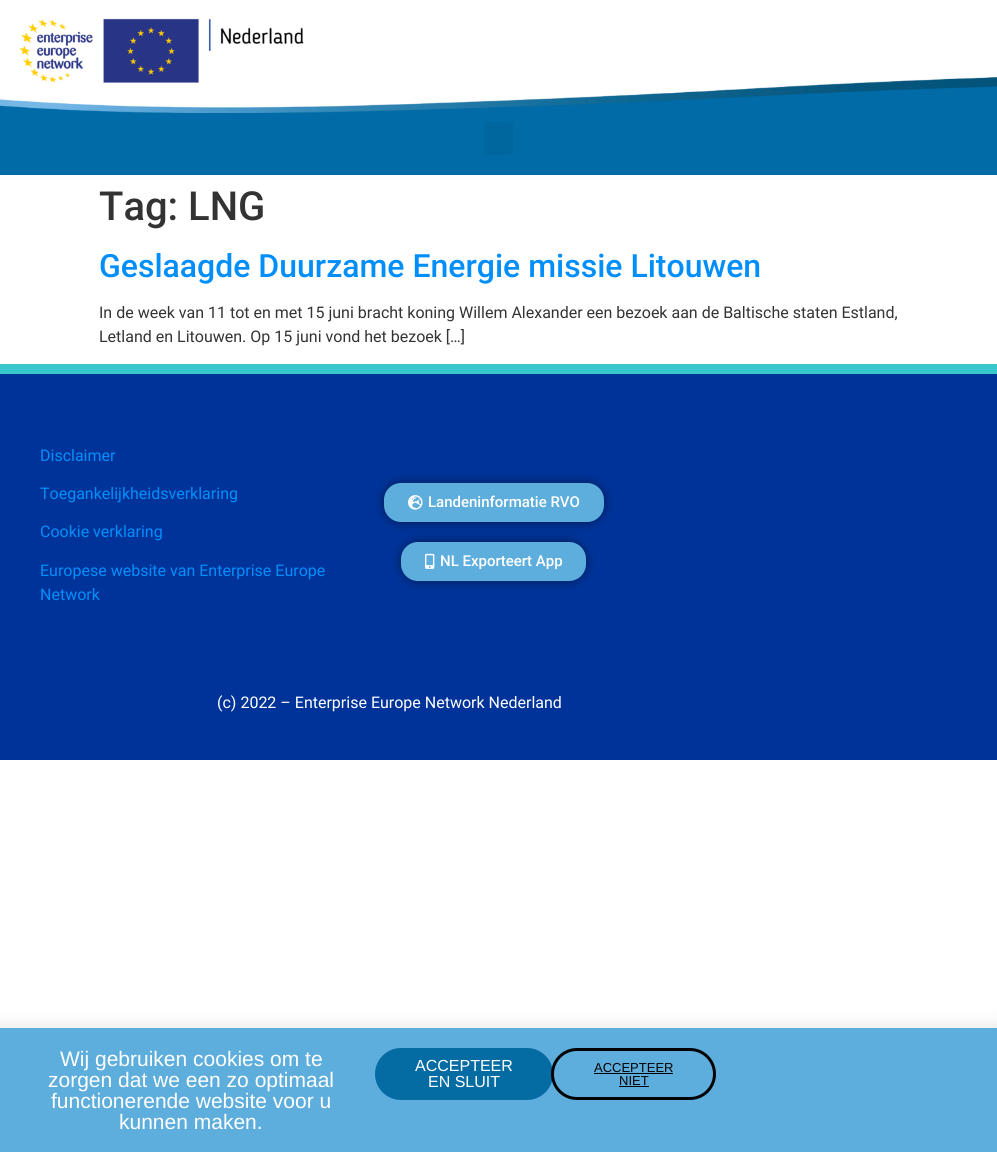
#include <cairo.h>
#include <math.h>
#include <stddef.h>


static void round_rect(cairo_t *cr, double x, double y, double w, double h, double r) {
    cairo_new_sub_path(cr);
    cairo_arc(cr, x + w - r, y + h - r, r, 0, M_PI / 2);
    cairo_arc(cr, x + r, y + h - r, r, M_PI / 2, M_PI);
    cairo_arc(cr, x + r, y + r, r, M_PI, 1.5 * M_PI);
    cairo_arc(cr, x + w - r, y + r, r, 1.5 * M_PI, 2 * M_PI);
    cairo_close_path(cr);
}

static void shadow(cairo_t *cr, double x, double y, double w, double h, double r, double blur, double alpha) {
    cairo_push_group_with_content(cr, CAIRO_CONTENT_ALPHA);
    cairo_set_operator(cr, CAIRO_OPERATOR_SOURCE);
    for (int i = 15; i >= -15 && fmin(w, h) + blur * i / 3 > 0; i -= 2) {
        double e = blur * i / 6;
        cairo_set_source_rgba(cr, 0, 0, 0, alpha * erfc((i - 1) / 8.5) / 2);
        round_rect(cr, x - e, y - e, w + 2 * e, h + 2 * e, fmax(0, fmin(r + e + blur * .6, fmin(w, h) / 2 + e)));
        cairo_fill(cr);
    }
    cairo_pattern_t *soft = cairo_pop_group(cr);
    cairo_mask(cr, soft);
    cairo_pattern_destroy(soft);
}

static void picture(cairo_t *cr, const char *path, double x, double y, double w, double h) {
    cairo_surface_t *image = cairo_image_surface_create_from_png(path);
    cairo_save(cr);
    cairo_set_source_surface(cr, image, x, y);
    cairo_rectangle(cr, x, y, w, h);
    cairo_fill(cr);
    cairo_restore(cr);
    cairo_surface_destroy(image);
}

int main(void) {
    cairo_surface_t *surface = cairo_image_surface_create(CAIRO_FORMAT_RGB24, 997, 1152);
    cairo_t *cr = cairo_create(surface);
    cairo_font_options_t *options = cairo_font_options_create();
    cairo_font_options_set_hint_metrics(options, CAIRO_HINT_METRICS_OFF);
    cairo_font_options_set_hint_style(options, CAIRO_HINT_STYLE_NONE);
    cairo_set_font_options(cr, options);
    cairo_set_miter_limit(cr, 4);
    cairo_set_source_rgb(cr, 1, 1, 1);
    cairo_paint(cr);
    cairo_set_source_rgb(cr, 0, 0.42, 0.651);
    cairo_rectangle(cr, 0, 86, 997, 89);
    cairo_fill(cr);
    picture(cr, "img1.png", 0, 0, 997, 113);
    cairo_set_source_rgb(cr, 0, 0.4, 0.62);
    round_rect(cr, 484, 122, 29, 33, 3);
    cairo_fill(cr);
    cairo_select_font_face(cr, "Roboto Medium", CAIRO_FONT_SLANT_NORMAL, CAIRO_FONT_WEIGHT_NORMAL);
    cairo_set_font_size(cr, 40);
    cairo_set_source_rgb(cr, 0.2, 0.2, 0.2);
    cairo_move_to(cr, 99, 220);
    cairo_show_text(cr, "Tag: LNG");
    cairo_set_font_size(cr, 32);
    cairo_set_source_rgb(cr, 0, 0.561, 0.98);
    cairo_move_to(cr, 99, 277);
    cairo_show_text(cr, "Geslaagde Duurzame Energie missie Litouwen");
    cairo_select_font_face(cr, "Roboto", CAIRO_FONT_SLANT_NORMAL, CAIRO_FONT_WEIGHT_NORMAL);
    cairo_set_font_size(cr, 16);
    cairo_set_source_rgb(cr, 0.2, 0.2, 0.2);
    cairo_move_to(cr, 99, 318);
    cairo_show_text(cr, "In de week van 11 tot en met 15 juni bracht koning Willem Alexander een bezoek aan de Baltische staten Estland,");
    cairo_move_to(cr, 99, 342);
    cairo_show_text(cr, "Letland en Litouwen. Op 15 juni vond het bezoek […]");
    cairo_set_source_rgb(cr, 0, 0.2, 0.6);
    cairo_rectangle(cr, 0, 374, 997, 386);
    cairo_fill(cr);
    cairo_set_source_rgb(cr, 0.224, 0.78, 0.808);
    cairo_rectangle(cr, 0, 364, 997, 10);
    cairo_fill(cr);
    cairo_set_source_rgb(cr, 0, 0.561, 0.98);
    cairo_move_to(cr, 40, 461);
    cairo_show_text(cr, "Disclaimer");
    cairo_move_to(cr, 40, 499);
    cairo_show_text(cr, "Toegankelijkheidsverklaring");
    cairo_move_to(cr, 40, 537);
    cairo_show_text(cr, "Cookie verklaring");
    cairo_move_to(cr, 40, 576);
    cairo_show_text(cr, "Europese website van Enterprise Europe");
    cairo_move_to(cr, 40, 600);
    cairo_show_text(cr, "Network");
    cairo_set_source_rgb(cr, 0, 0, 0);
    shadow(cr, 384, 483, 220, 39, 17, 5, 0.5);
    cairo_set_source_rgb(cr, 0.365, 0.678, 0.867);
    round_rect(cr, 384, 483, 220, 39, 17);
    cairo_fill(cr);
    picture(cr, "img2.png", 408, 495, 15, 15);
    cairo_select_font_face(cr, "Roboto Medium", CAIRO_FONT_SLANT_NORMAL, CAIRO_FONT_WEIGHT_NORMAL);
    cairo_set_font_size(cr, 15);
    cairo_set_source_rgb(cr, 1, 1, 1);
    cairo_move_to(cr, 428, 507);
    cairo_show_text(cr, "Landeninformatie RVO");
    cairo_set_source_rgb(cr, 0, 0, 0);
    shadow(cr, 401, 542, 185, 39, 17, 5, 0.5);
    cairo_set_source_rgb(cr, 0.365, 0.678, 0.867);
    round_rect(cr, 401, 542, 185, 39, 17);
    cairo_fill(cr);
    picture(cr, "img3.png", 425, 553, 10, 16);
    cairo_set_source_rgb(cr, 1, 1, 1);
    cairo_move_to(cr, 440, 566);
    cairo_show_text(cr, "NL Exporteert App");
    cairo_select_font_face(cr, "Roboto", CAIRO_FONT_SLANT_NORMAL, CAIRO_FONT_WEIGHT_NORMAL);
    cairo_set_font_size(cr, 16);
    cairo_move_to(cr, 217, 708);
    cairo_show_text(cr, "(c) 2022 – Enterprise Europe Network Nederland");
    cairo_set_source_rgb(cr, 0, 0, 0);
    shadow(cr, -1, 1033, 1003, 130, 0, 11.5, 0.2);
    cairo_set_source_rgb(cr, 0.365, 0.678, 0.867);
    cairo_rectangle(cr, 0, 1028, 997, 124);
    cairo_fill(cr);
    cairo_select_font_face(cr, "Liberation Sans", CAIRO_FONT_SLANT_NORMAL, CAIRO_FONT_WEIGHT_NORMAL);
    cairo_set_font_size(cr, 21);
    cairo_set_source_rgb(cr, 1, 1, 1);
    cairo_move_to(cr, 60, 1066);
    cairo_show_text(cr, "Wij gebruiken cookies om te");
    cairo_move_to(cr, 48, 1087);
    cairo_show_text(cr, "zorgen dat we een zo optimaal");
    cairo_move_to(cr, 51, 1108);
    cairo_show_text(cr, "functionerende website voor u");
    cairo_move_to(cr, 119, 1129);
    cairo_show_text(cr, "kunnen maken.");
    cairo_set_source_rgb(cr, 0.016, 0.424, 0.639);
    round_rect(cr, 375, 1048, 178, 52, 26);
    cairo_fill(cr);
    cairo_set_font_size(cr, 16);
    cairo_set_source_rgb(cr, 1, 1, 1);
    cairo_move_to(cr, 415, 1071);
    cairo_show_text(cr, "ACCEPTEER");
    cairo_move_to(cr, 428, 1087);
    cairo_show_text(cr, "EN SLUIT");
    cairo_set_source_rgb(cr, 0.365, 0.678, 0.867);
    round_rect(cr, 552.5, 1049.5, 162, 49, 24.5);
    cairo_fill_preserve(cr);
    cairo_set_source_rgb(cr, 0.012, 0.012, 0.012);
    cairo_set_line_width(cr, 3);
    cairo_stroke(cr);
    cairo_set_font_size(cr, 13);
    cairo_move_to(cr, 594, 1072);
    cairo_show_text(cr, "ACCEPTEER");
    cairo_rectangle(cr, 594, 1073, 79, 1);
    cairo_fill(cr);
    cairo_move_to(cr, 619, 1085);
    cairo_show_text(cr, "NIET");
    cairo_rectangle(cr, 619, 1086, 30, 1);
    cairo_fill(cr);
    cairo_surface_write_to_png(surface, "page.png");
    cairo_font_options_destroy(options);
    cairo_destroy(cr);
    cairo_surface_destroy(surface);
    return 0;
}
